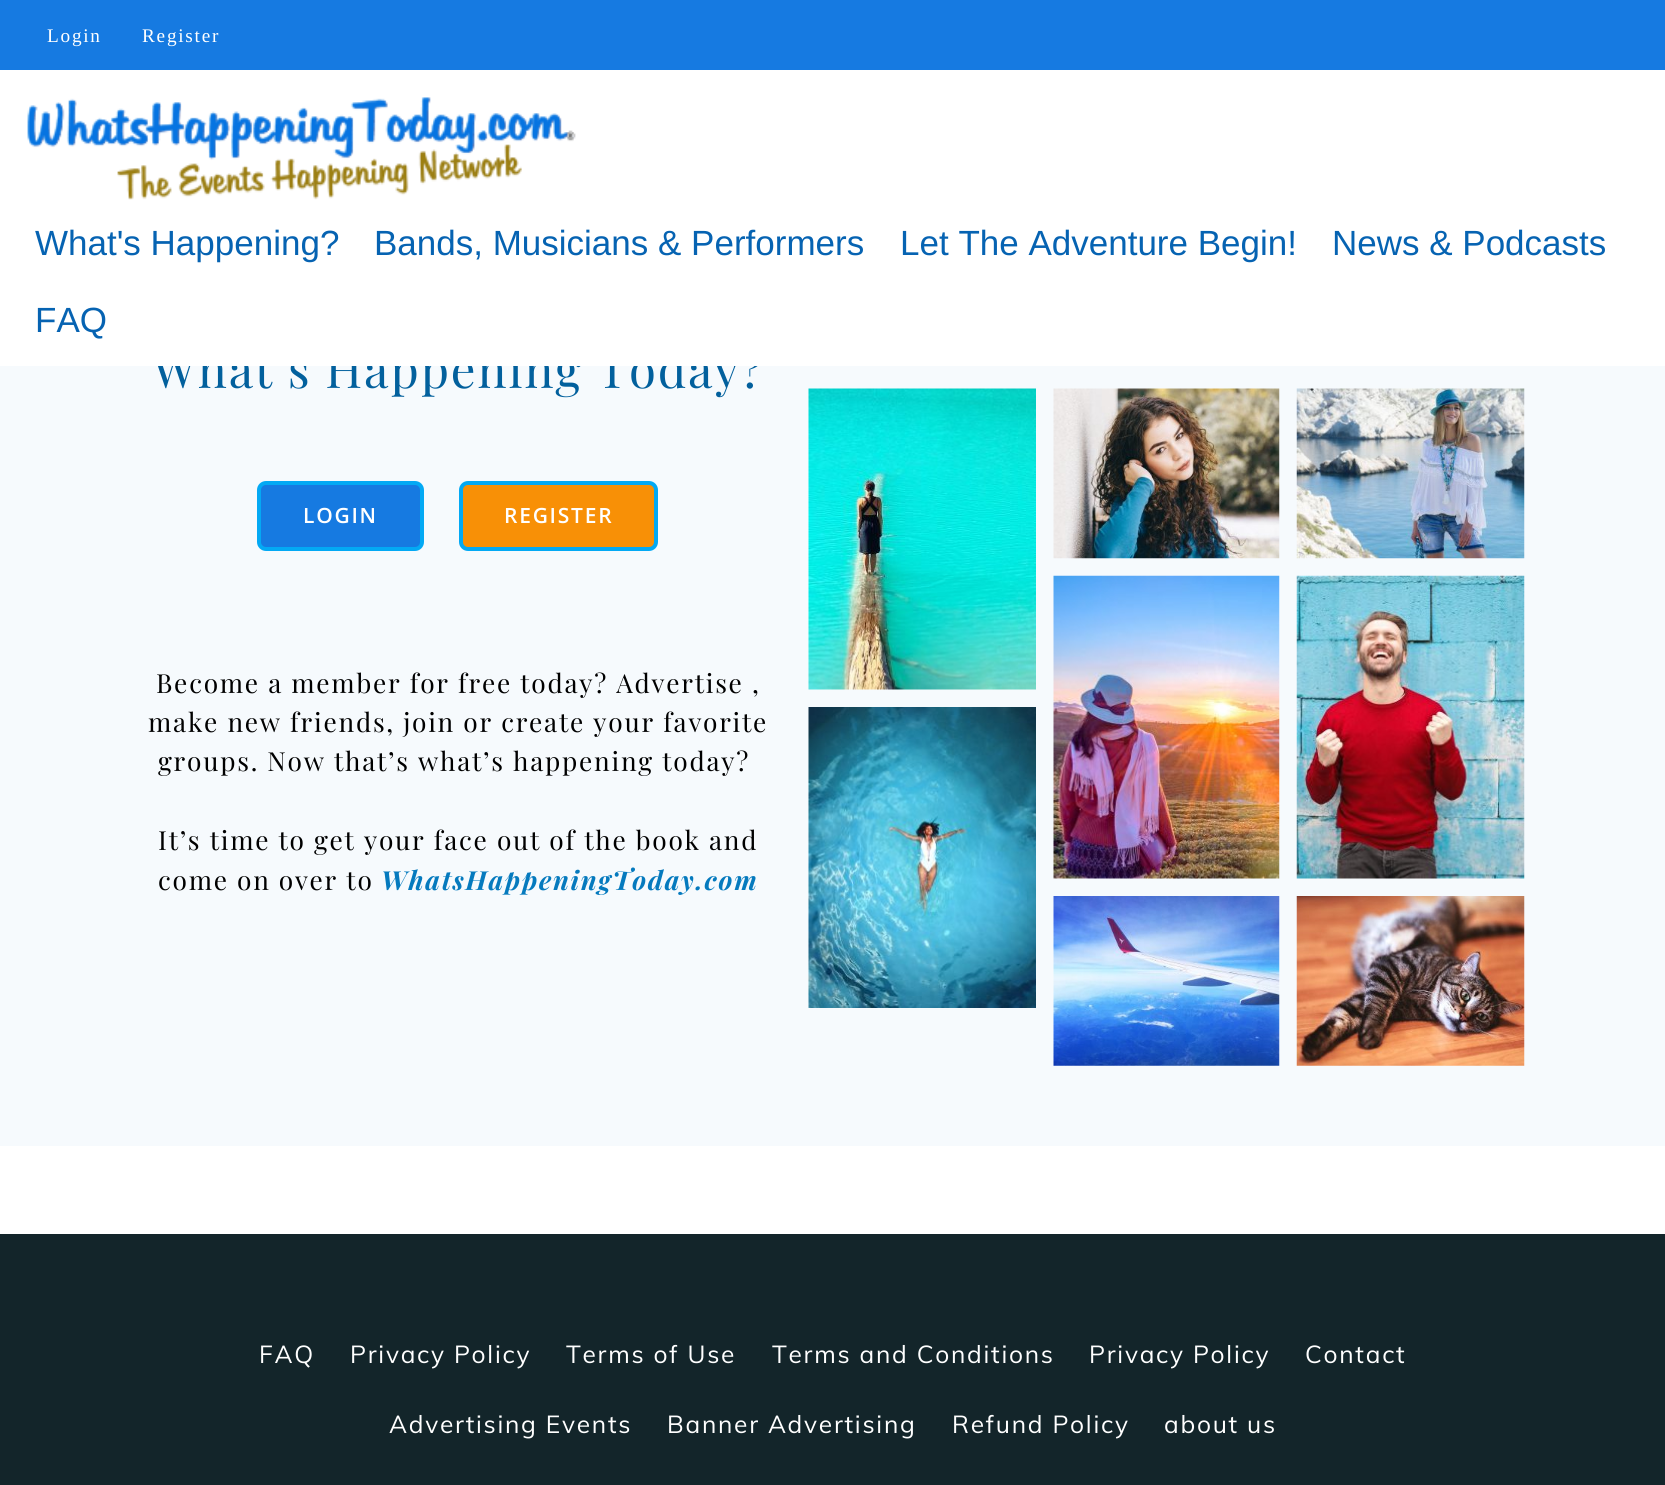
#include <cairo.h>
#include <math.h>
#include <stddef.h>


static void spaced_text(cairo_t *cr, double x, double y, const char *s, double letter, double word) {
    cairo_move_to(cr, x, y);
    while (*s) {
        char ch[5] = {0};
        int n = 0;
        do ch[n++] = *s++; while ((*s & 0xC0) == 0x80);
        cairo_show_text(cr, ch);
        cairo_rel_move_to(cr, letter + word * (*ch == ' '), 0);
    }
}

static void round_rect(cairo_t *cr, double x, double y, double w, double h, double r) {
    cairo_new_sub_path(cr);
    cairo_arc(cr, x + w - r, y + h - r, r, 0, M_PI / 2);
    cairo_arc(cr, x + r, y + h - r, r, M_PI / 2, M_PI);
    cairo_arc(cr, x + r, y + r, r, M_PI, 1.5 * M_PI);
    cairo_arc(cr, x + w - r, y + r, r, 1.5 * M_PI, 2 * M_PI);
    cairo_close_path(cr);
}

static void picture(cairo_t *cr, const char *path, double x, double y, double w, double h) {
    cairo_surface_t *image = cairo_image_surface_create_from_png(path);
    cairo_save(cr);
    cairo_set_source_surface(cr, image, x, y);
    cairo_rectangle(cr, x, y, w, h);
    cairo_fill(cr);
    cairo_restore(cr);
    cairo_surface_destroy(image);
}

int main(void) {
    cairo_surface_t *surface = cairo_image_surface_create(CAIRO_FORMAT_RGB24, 1665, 1485);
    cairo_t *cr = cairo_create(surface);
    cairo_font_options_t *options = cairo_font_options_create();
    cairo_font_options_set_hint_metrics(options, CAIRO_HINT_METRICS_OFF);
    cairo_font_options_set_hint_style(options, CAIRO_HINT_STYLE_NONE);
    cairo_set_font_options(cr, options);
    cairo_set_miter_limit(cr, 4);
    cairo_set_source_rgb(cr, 1, 1, 1);
    cairo_paint(cr);
    cairo_set_source_rgb(cr, 0.961, 0.98, 0.992);
    cairo_rectangle(cr, 0, 366, 1665, 780);
    cairo_fill(cr);
    cairo_select_font_face(cr, "Playfair Display", CAIRO_FONT_SLANT_NORMAL, CAIRO_FONT_WEIGHT_NORMAL);
    cairo_set_font_size(cr, 49);
    cairo_set_source_rgb(cr, 0.008, 0.376, 0.616);
    spaced_text(cr, 152, 388, "What’s Happening Today?", 1.75, 0);
    cairo_set_source_rgb(cr, 1, 1, 1);
    cairo_rectangle(cr, 151, 349, 611, 17);
    cairo_fill(cr);
    cairo_set_source_rgb(cr, 0.086, 0.478, 0.882);
    cairo_rectangle(cr, 0, 0, 1665, 70);
    cairo_fill(cr);
    cairo_select_font_face(cr, "Liberation Serif", CAIRO_FONT_SLANT_NORMAL, CAIRO_FONT_WEIGHT_NORMAL);
    cairo_set_font_size(cr, 19.25);
    cairo_set_source_rgb(cr, 1, 1, 1);
    spaced_text(cr, 47, 42, "Login", 1.75, 0);
    spaced_text(cr, 142, 42, "Register", 1.75, 0);
    picture(cr, "img1.png", 27, 97, 549, 103);
    cairo_select_font_face(cr, "Liberation Sans", CAIRO_FONT_SLANT_NORMAL, CAIRO_FONT_WEIGHT_NORMAL);
    cairo_set_font_size(cr, 35);
    cairo_set_source_rgb(cr, 0.024, 0.388, 0.698);
    cairo_move_to(cr, 35, 255);
    cairo_show_text(cr, "What's Happening?");
    cairo_move_to(cr, 374, 255);
    cairo_show_text(cr, "Bands, Musicians & Performers");
    cairo_move_to(cr, 900, 255);
    cairo_show_text(cr, "Let The Adventure Begin!");
    cairo_move_to(cr, 1332, 255);
    cairo_show_text(cr, "News & Podcasts");
    cairo_move_to(cr, 35, 332);
    cairo_show_text(cr, "FAQ");
    cairo_set_source_rgb(cr, 0.086, 0.478, 0.882);
    round_rect(cr, 259, 483, 163, 66, 7);
    cairo_fill_preserve(cr);
    cairo_set_source_rgb(cr, 0.012, 0.663, 0.957);
    cairo_set_line_width(cr, 4);
    cairo_stroke(cr);
    cairo_select_font_face(cr, "Open Sans SemiBold", CAIRO_FONT_SLANT_NORMAL, CAIRO_FONT_WEIGHT_NORMAL);
    cairo_set_font_size(cr, 21);
    cairo_set_source_rgb(cr, 1, 1, 1);
    spaced_text(cr, 303, 523, "LOGIN", 1.75, 0);
    cairo_set_source_rgb(cr, 0.969, 0.565, 0.027);
    round_rect(cr, 461, 483, 195, 66, 7);
    cairo_fill_preserve(cr);
    cairo_set_source_rgb(cr, 0.012, 0.663, 0.957);
    cairo_stroke(cr);
    cairo_set_source_rgb(cr, 1, 1, 1);
    spaced_text(cr, 504, 523, "REGISTER", 1.75, 0);
    cairo_select_font_face(cr, "Playfair Display", CAIRO_FONT_SLANT_NORMAL, CAIRO_FONT_WEIGHT_NORMAL);
    cairo_set_font_size(cr, 26.25);
    cairo_set_source_rgb(cr, 0, 0, 0);
    spaced_text(cr, 156, 693, "Become a member for free today? Advertise ,", 1.75, 0);
    spaced_text(cr, 148, 732, "make new friends, join or create your favorite", 1.75, 0);
    spaced_text(cr, 158, 771, "groups. Now that’s what’s happening today?", 1.75, 0);
    spaced_text(cr, 158, 850, "It’s time to get your face out of the book and", 1.75, 0);
    spaced_text(cr, 158, 890, "come on over to", 1.75, 0);
    cairo_select_font_face(cr, "Playfair Display", CAIRO_FONT_SLANT_ITALIC, CAIRO_FONT_WEIGHT_BOLD);
    cairo_set_source_rgb(cr, 0.02, 0.478, 0.745);
    spaced_text(cr, 381, 890, "WhatsHappeningToday.com", 1.75, 0);
    picture(cr, "img2.png", 808, 388, 228, 302);
    picture(cr, "img3.png", 1053, 388, 227, 171);
    picture(cr, "img4.png", 1296, 388, 229, 171);
    picture(cr, "img5.png", 808, 707, 228, 301);
    picture(cr, "img6.png", 1053, 575, 227, 304);
    picture(cr, "img7.png", 1296, 575, 229, 304);
    picture(cr, "img8.png", 1053, 896, 227, 170);
    picture(cr, "img9.png", 1296, 896, 229, 170);
    cairo_set_source_rgb(cr, 0.075, 0.145, 0.165);
    cairo_rectangle(cr, 0, 1234, 1665, 251);
    cairo_fill(cr);
    cairo_select_font_face(cr, "Muli", CAIRO_FONT_SLANT_NORMAL, CAIRO_FONT_WEIGHT_NORMAL);
    cairo_set_font_size(cr, 24.5);
    cairo_set_source_rgb(cr, 1, 1, 1);
    spaced_text(cr, 259, 1363, "FAQ", 1.75, 0);
    spaced_text(cr, 350, 1363, "Privacy Policy", 1.75, 0);
    spaced_text(cr, 566, 1363, "Terms of Use", 1.75, 0);
    spaced_text(cr, 772, 1363, "Terms and Conditions", 1.75, 0);
    spaced_text(cr, 1089, 1363, "Privacy Policy", 1.75, 0);
    spaced_text(cr, 1305, 1363, "Contact", 1.75, 0);
    spaced_text(cr, 389, 1433, "Advertising Events", 1.75, 0);
    spaced_text(cr, 667, 1433, "Banner Advertising", 1.75, 0);
    spaced_text(cr, 952, 1433, "Refund Policy", 1.75, 0);
    spaced_text(cr, 1164, 1433, "about us", 1.75, 0);
    cairo_surface_write_to_png(surface, "page.png");
    cairo_font_options_destroy(options);
    cairo_destroy(cr);
    cairo_surface_destroy(surface);
    return 0;
}
